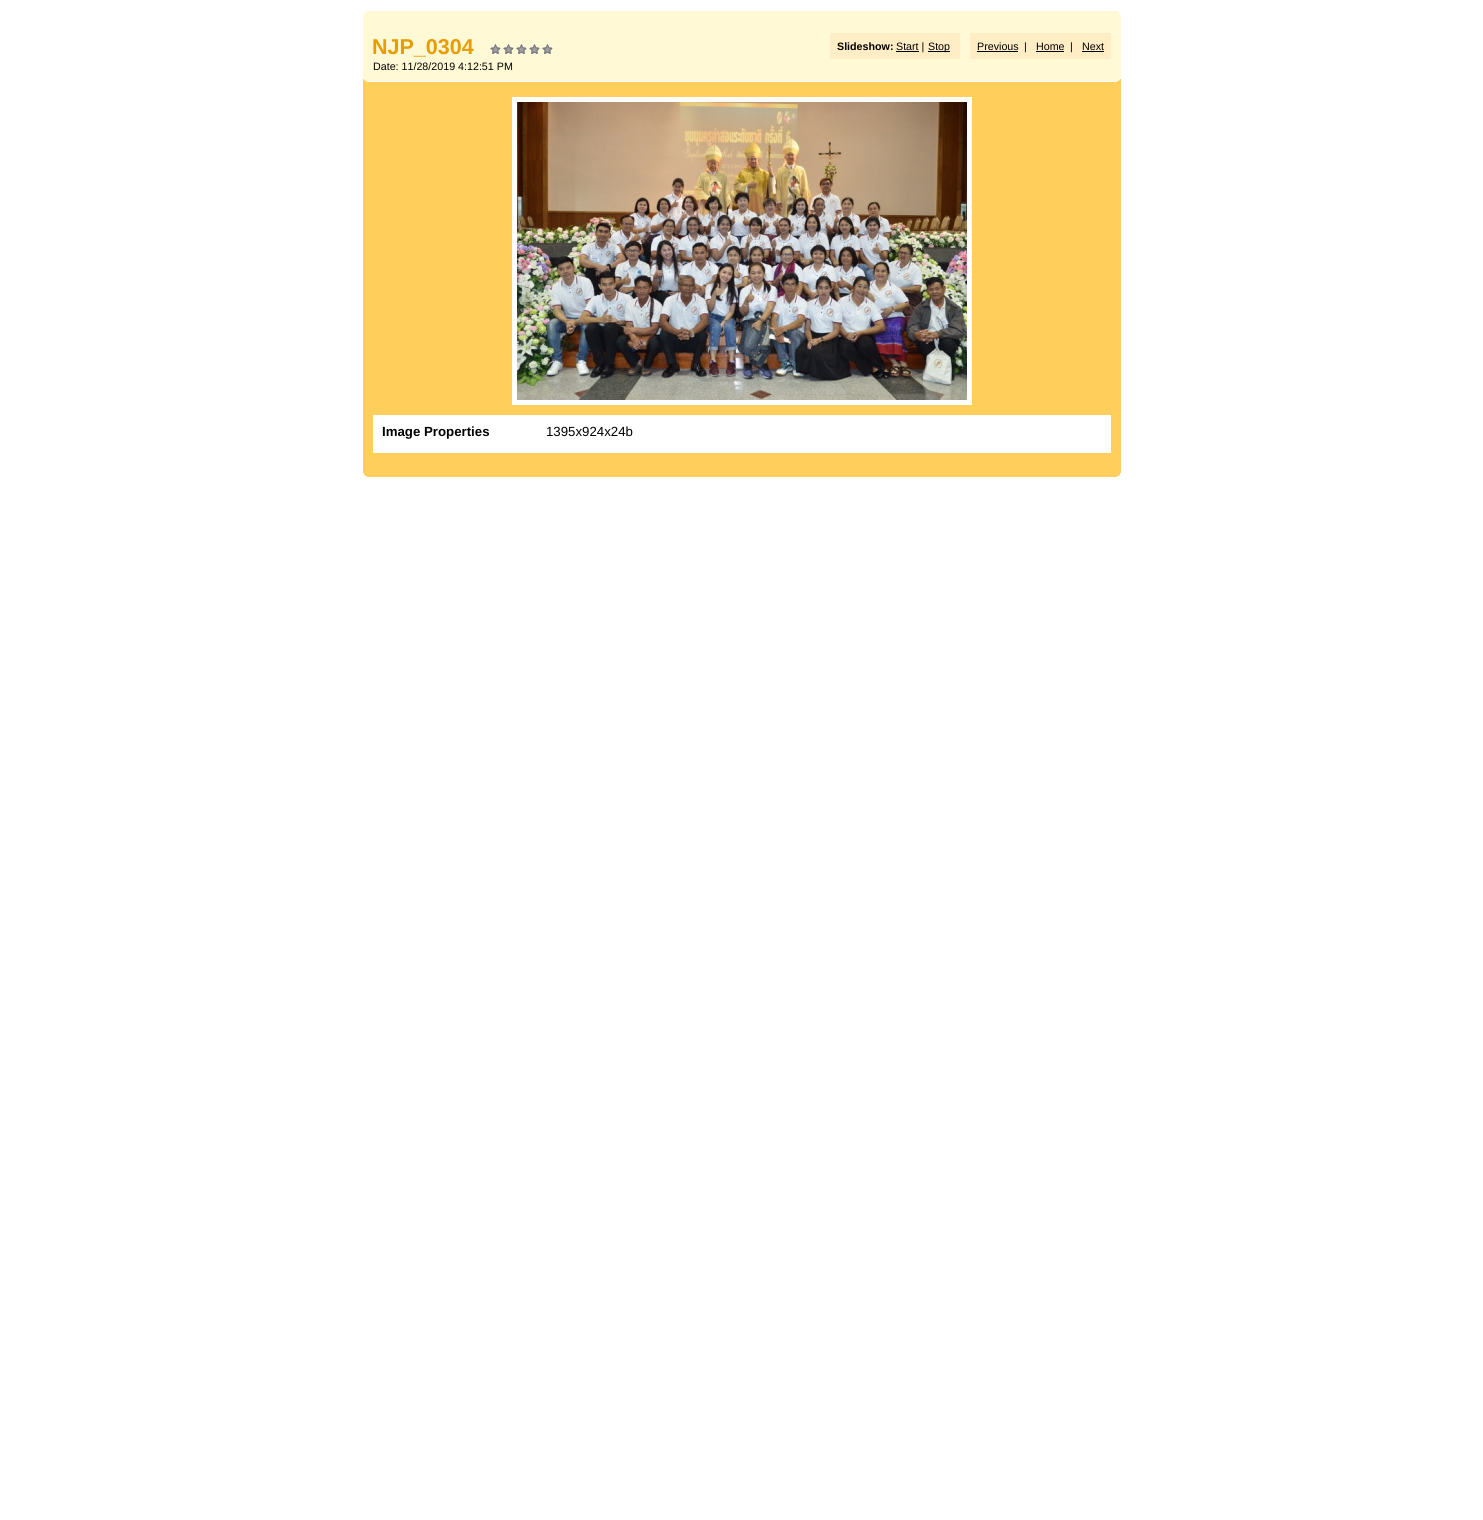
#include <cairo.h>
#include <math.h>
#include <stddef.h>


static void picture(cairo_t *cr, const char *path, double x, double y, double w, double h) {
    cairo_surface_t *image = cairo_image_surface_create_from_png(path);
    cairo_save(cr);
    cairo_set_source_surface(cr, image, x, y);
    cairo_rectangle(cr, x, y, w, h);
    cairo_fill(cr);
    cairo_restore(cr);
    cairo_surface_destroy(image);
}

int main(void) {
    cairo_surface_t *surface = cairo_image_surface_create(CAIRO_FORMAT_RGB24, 1483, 1520);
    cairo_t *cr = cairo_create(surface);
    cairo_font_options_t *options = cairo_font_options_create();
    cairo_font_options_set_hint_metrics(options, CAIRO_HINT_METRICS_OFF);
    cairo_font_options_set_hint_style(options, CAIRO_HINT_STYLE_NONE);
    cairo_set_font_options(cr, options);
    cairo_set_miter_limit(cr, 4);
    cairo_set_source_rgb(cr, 1, 1, 1);
    cairo_paint(cr);
    cairo_set_source_rgb(cr, 1, 0.973, 0.839);
    cairo_rectangle(cr, 365, 11, 754, 1);
    cairo_fill(cr);
    cairo_set_source_rgb(cr, 1, 1, 1);
    cairo_rectangle(cr, 1118, 11, 1, 1);
    cairo_fill(cr);
    cairo_rectangle(cr, 365, 11, 1, 1);
    cairo_fill(cr);
    cairo_set_source_rgb(cr, 1, 0.973, 0.839);
    cairo_rectangle(cr, 364, 12, 756, 1);
    cairo_fill(cr);
    cairo_set_source_rgb(cr, 1, 1, 1);
    cairo_rectangle(cr, 1119, 12, 1, 1);
    cairo_fill(cr);
    cairo_rectangle(cr, 364, 12, 1, 1);
    cairo_fill(cr);
    cairo_set_source_rgb(cr, 1, 0.973, 0.839);
    cairo_rectangle(cr, 363, 13, 758, 66);
    cairo_fill(cr);
    cairo_set_source_rgb(cr, 1, 1, 1);
    cairo_rectangle(cr, 1120, 13, 1, 2);
    cairo_fill(cr);
    cairo_rectangle(cr, 363, 13, 1, 2);
    cairo_fill(cr);
    cairo_select_font_face(cr, "Liberation Sans", CAIRO_FONT_SLANT_NORMAL, CAIRO_FONT_WEIGHT_BOLD);
    cairo_set_font_size(cr, 21.5);
    cairo_set_source_rgb(cr, 0.91, 0.612, 0);
    cairo_move_to(cr, 372, 54);
    cairo_show_text(cr, "NJP_0304");
    picture(cr, "img1.png", 490, 44, 63, 10);
    cairo_select_font_face(cr, "Liberation Sans", CAIRO_FONT_SLANT_NORMAL, CAIRO_FONT_WEIGHT_NORMAL);
    cairo_set_font_size(cr, 10.7);
    cairo_set_source_rgb(cr, 0, 0, 0);
    cairo_move_to(cr, 373, 70);
    cairo_show_text(cr, "Date: 11/28/2019 4:12:51 PM");
    cairo_set_source_rgb(cr, 1, 0.933, 0.773);
    cairo_rectangle(cr, 830, 33, 130, 26);
    cairo_fill(cr);
    cairo_select_font_face(cr, "Liberation Sans", CAIRO_FONT_SLANT_NORMAL, CAIRO_FONT_WEIGHT_BOLD);
    cairo_set_source_rgb(cr, 0, 0, 0);
    cairo_move_to(cr, 837, 50);
    cairo_show_text(cr, "Slideshow:");
    cairo_rectangle(cr, 896, 51, 23, 1);
    cairo_fill(cr);
    cairo_select_font_face(cr, "Liberation Sans", CAIRO_FONT_SLANT_NORMAL, CAIRO_FONT_WEIGHT_NORMAL);
    cairo_move_to(cr, 896, 50);
    cairo_show_text(cr, "Start |");
    cairo_rectangle(cr, 928, 51, 22, 1);
    cairo_fill(cr);
    cairo_move_to(cr, 928, 50);
    cairo_show_text(cr, "Stop");
    cairo_set_source_rgb(cr, 1, 0.933, 0.773);
    cairo_rectangle(cr, 970, 33, 141, 26);
    cairo_fill(cr);
    cairo_set_source_rgb(cr, 0, 0, 0);
    cairo_move_to(cr, 977, 50);
    cairo_show_text(cr, "Previous");
    cairo_rectangle(cr, 977, 51, 41, 1);
    cairo_fill(cr);
    cairo_move_to(cr, 1024, 50);
    cairo_show_text(cr, "|");
    cairo_move_to(cr, 1036, 50);
    cairo_show_text(cr, "Home");
    cairo_rectangle(cr, 1036, 51, 28, 1);
    cairo_fill(cr);
    cairo_move_to(cr, 1070, 50);
    cairo_show_text(cr, "|");
    cairo_move_to(cr, 1082, 50);
    cairo_show_text(cr, "Next");
    cairo_rectangle(cr, 1082, 51, 22, 1);
    cairo_fill(cr);
    cairo_set_source_rgb(cr, 1, 1, 1);
    cairo_rectangle(cr, 1120, 77, 1, 2);
    cairo_fill(cr);
    cairo_rectangle(cr, 363, 77, 1, 2);
    cairo_fill(cr);
    cairo_set_source_rgb(cr, 1, 0.808, 0.357);
    cairo_rectangle(cr, 363, 79, 758, 396);
    cairo_fill(cr);
    cairo_set_source_rgb(cr, 1, 0.973, 0.839);
    cairo_rectangle(cr, 364, 79, 756, 1);
    cairo_fill(cr);
    cairo_set_source_rgb(cr, 1, 1, 1);
    cairo_rectangle(cr, 1119, 79, 1, 1);
    cairo_fill(cr);
    cairo_rectangle(cr, 364, 79, 1, 1);
    cairo_fill(cr);
    cairo_set_source_rgb(cr, 1, 0.973, 0.839);
    cairo_rectangle(cr, 365, 80, 754, 1);
    cairo_fill(cr);
    cairo_set_source_rgb(cr, 1, 1, 1);
    cairo_rectangle(cr, 1118, 80, 1, 1);
    cairo_fill(cr);
    cairo_rectangle(cr, 365, 80, 1, 1);
    cairo_fill(cr);
    cairo_rectangle(cr, 367, 81, 750, 1);
    cairo_fill(cr);
    cairo_rectangle(cr, 512, 97, 460, 308);
    cairo_fill(cr);
    picture(cr, "img2.png", 517, 102, 450, 298);
    cairo_rectangle(cr, 373, 415, 738, 38);
    cairo_fill(cr);
    cairo_select_font_face(cr, "Liberation Sans", CAIRO_FONT_SLANT_NORMAL, CAIRO_FONT_WEIGHT_BOLD);
    cairo_set_font_size(cr, 13.25);
    cairo_set_source_rgb(cr, 0, 0, 0);
    cairo_move_to(cr, 382, 436);
    cairo_show_text(cr, "Image Properties");
    cairo_select_font_face(cr, "Liberation Sans", CAIRO_FONT_SLANT_NORMAL, CAIRO_FONT_WEIGHT_NORMAL);
    cairo_move_to(cr, 546, 436);
    cairo_show_text(cr, "1395x924x24b");
    cairo_set_source_rgb(cr, 1, 1, 1);
    cairo_rectangle(cr, 1120, 473, 1, 2);
    cairo_fill(cr);
    cairo_rectangle(cr, 363, 473, 1, 2);
    cairo_fill(cr);
    cairo_set_source_rgb(cr, 1, 0.808, 0.357);
    cairo_rectangle(cr, 364, 475, 756, 1);
    cairo_fill(cr);
    cairo_set_source_rgb(cr, 1, 1, 1);
    cairo_rectangle(cr, 1119, 475, 1, 1);
    cairo_fill(cr);
    cairo_rectangle(cr, 364, 475, 1, 1);
    cairo_fill(cr);
    cairo_set_source_rgb(cr, 1, 0.808, 0.357);
    cairo_rectangle(cr, 365, 476, 754, 1);
    cairo_fill(cr);
    cairo_set_source_rgb(cr, 1, 1, 1);
    cairo_rectangle(cr, 1117, 476, 2, 1);
    cairo_fill(cr);
    cairo_rectangle(cr, 365, 476, 2, 1);
    cairo_fill(cr);
    cairo_surface_write_to_png(surface, "page.png");
    cairo_font_options_destroy(options);
    cairo_destroy(cr);
    cairo_surface_destroy(surface);
    return 0;
}
